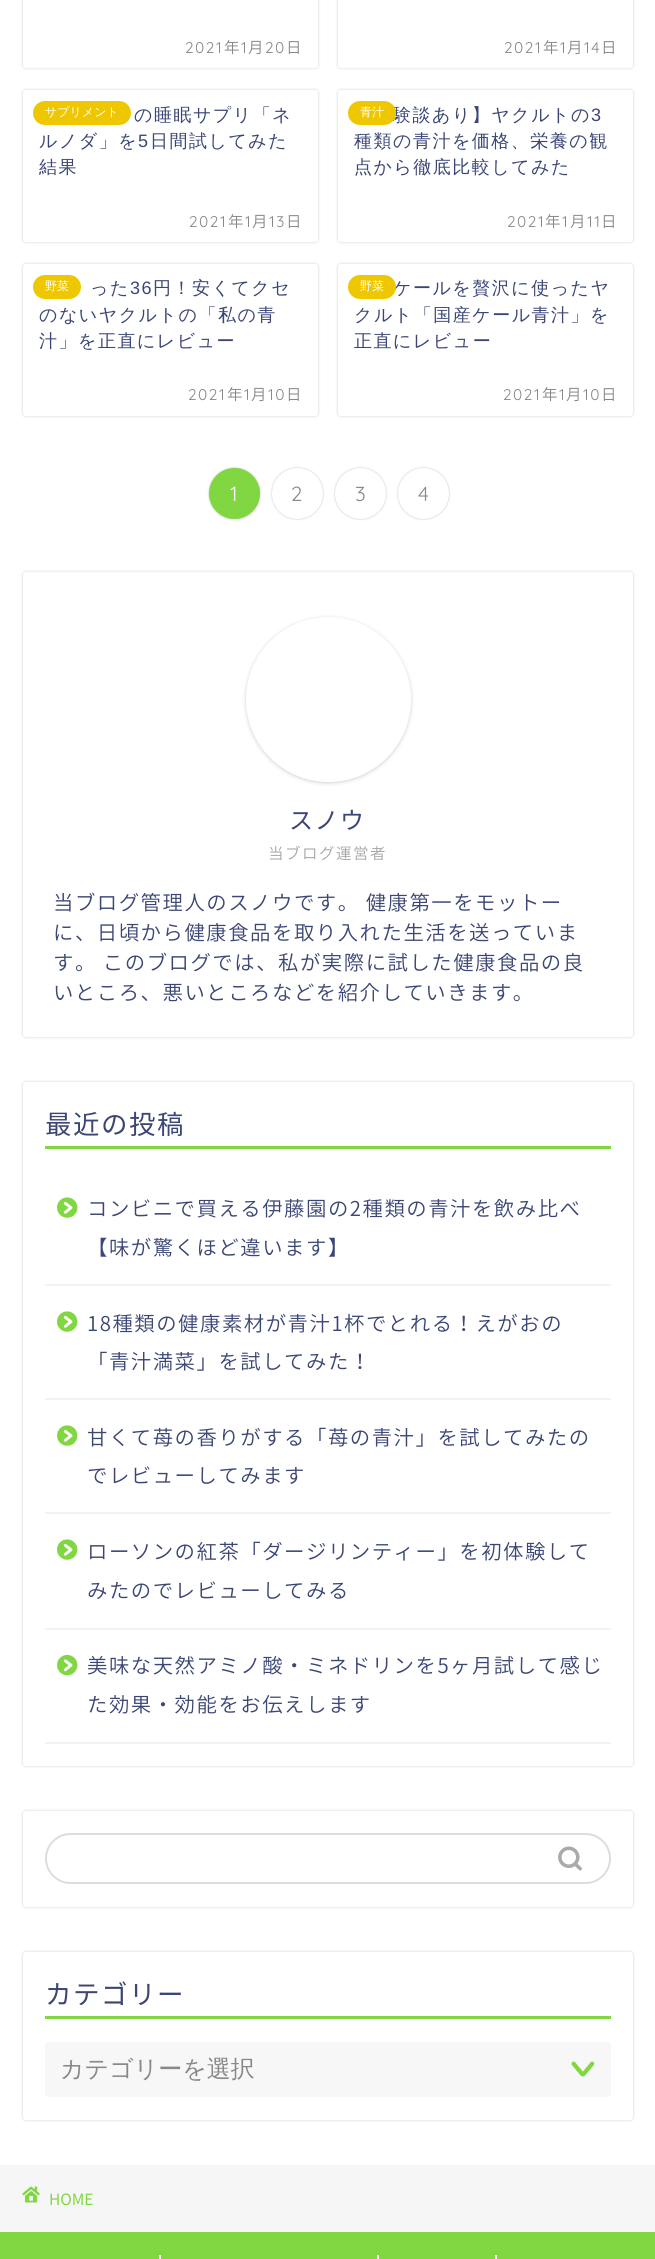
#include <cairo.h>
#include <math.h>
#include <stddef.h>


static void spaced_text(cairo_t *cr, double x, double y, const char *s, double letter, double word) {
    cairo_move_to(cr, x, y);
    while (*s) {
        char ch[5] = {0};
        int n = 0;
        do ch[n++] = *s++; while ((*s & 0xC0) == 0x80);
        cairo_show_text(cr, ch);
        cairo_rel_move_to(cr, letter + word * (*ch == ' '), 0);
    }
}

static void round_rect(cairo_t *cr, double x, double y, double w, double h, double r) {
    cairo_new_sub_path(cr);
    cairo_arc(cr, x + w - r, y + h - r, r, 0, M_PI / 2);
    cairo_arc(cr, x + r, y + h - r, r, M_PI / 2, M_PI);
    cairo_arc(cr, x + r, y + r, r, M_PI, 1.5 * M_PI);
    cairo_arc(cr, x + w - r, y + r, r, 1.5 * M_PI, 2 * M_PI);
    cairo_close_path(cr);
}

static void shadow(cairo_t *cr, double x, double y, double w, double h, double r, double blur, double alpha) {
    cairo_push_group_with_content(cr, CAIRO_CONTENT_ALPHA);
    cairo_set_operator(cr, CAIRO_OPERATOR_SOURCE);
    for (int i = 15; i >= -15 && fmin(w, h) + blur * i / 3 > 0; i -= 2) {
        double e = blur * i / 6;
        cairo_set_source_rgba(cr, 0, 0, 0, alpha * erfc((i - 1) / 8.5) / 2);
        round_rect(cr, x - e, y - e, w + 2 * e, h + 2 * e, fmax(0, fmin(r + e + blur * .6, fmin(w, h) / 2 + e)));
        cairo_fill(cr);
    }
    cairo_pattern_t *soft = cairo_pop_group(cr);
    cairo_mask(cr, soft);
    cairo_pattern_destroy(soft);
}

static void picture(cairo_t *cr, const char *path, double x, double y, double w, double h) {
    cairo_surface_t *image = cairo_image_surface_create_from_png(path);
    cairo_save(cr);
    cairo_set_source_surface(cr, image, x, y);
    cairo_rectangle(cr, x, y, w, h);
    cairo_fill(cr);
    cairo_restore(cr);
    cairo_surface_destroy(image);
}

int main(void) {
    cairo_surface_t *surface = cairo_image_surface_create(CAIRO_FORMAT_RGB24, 655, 2259);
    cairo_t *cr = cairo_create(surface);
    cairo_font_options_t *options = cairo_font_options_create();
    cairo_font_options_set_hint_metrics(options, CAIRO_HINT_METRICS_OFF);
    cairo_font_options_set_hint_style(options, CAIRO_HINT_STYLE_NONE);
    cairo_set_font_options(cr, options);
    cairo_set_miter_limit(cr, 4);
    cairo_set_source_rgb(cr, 1, 1, 1);
    cairo_paint(cr);
    cairo_set_source_rgb(cr, 0, 0, 0);
    shadow(cr, 23, -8, 295, 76, 3, 1.5, 0.18);
    cairo_set_source_rgb(cr, 1, 1, 1);
    round_rect(cr, 23, -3, 295, 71, 3);
    cairo_fill(cr);
    cairo_select_font_face(cr, "Quicksand Light", CAIRO_FONT_SLANT_NORMAL, CAIRO_FONT_WEIGHT_NORMAL);
    cairo_set_font_size(cr, 15.5);
    cairo_set_source_rgb(cr, 0.533, 0.533, 0.533);
    spaced_text(cr, 185, 53, "2021", 1.5, 0);
    cairo_select_font_face(cr, "Noto Sans JP Light", CAIRO_FONT_SLANT_NORMAL, CAIRO_FONT_WEIGHT_NORMAL);
    spaced_text(cr, 224, 53, "年", 1.5, 0);
    cairo_select_font_face(cr, "Quicksand Light", CAIRO_FONT_SLANT_NORMAL, CAIRO_FONT_WEIGHT_NORMAL);
    spaced_text(cr, 241, 53, "1", 1.5, 0);
    cairo_select_font_face(cr, "Noto Sans JP Light", CAIRO_FONT_SLANT_NORMAL, CAIRO_FONT_WEIGHT_NORMAL);
    spaced_text(cr, 248, 53, "月", 1.5, 0);
    cairo_select_font_face(cr, "Quicksand Light", CAIRO_FONT_SLANT_NORMAL, CAIRO_FONT_WEIGHT_NORMAL);
    spaced_text(cr, 265, 53, "20", 1.5, 0);
    cairo_select_font_face(cr, "Noto Sans JP Light", CAIRO_FONT_SLANT_NORMAL, CAIRO_FONT_WEIGHT_NORMAL);
    spaced_text(cr, 286, 53, "日", 1.5, 0);
    cairo_set_source_rgb(cr, 0, 0, 0);
    shadow(cr, 338, -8, 295, 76, 3, 1.5, 0.18);
    cairo_set_source_rgb(cr, 1, 1, 1);
    round_rect(cr, 338, -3, 295, 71, 3);
    cairo_fill(cr);
    cairo_select_font_face(cr, "Quicksand Light", CAIRO_FONT_SLANT_NORMAL, CAIRO_FONT_WEIGHT_NORMAL);
    cairo_set_source_rgb(cr, 0.533, 0.533, 0.533);
    spaced_text(cr, 504, 53, "2021", 1.5, 0);
    cairo_select_font_face(cr, "Noto Sans JP Light", CAIRO_FONT_SLANT_NORMAL, CAIRO_FONT_WEIGHT_NORMAL);
    spaced_text(cr, 543, 53, "年", 1.5, 0);
    cairo_select_font_face(cr, "Quicksand Light", CAIRO_FONT_SLANT_NORMAL, CAIRO_FONT_WEIGHT_NORMAL);
    spaced_text(cr, 560, 53, "1", 1.5, 0);
    cairo_select_font_face(cr, "Noto Sans JP Light", CAIRO_FONT_SLANT_NORMAL, CAIRO_FONT_WEIGHT_NORMAL);
    spaced_text(cr, 567, 53, "月", 1.5, 0);
    cairo_select_font_face(cr, "Quicksand Light", CAIRO_FONT_SLANT_NORMAL, CAIRO_FONT_WEIGHT_NORMAL);
    spaced_text(cr, 584, 53, "14", 1.5, 0);
    cairo_select_font_face(cr, "Noto Sans JP Light", CAIRO_FONT_SLANT_NORMAL, CAIRO_FONT_WEIGHT_NORMAL);
    spaced_text(cr, 601, 53, "日", 1.5, 0);
    cairo_set_source_rgb(cr, 0, 0, 0);
    shadow(cr, 23, 90, 295, 152, 3, 1.5, 0.18);
    cairo_set_source_rgb(cr, 1, 1, 1);
    round_rect(cr, 23, 90, 295, 152, 3);
    cairo_fill(cr);
    cairo_select_font_face(cr, "WenQuanYi Zen Hei Medium", CAIRO_FONT_SLANT_NORMAL, CAIRO_FONT_WEIGHT_NORMAL);
    cairo_set_font_size(cr, 18);
    cairo_set_source_rgb(cr, 0.231, 0.275, 0.459);
    spaced_text(cr, 134, 121, "の睡眠サプリ「ネ", 1.5, 0);
    spaced_text(cr, 39, 147, "ルノダ」を", 1.5, 0);
    cairo_select_font_face(cr, "Liberation Sans", CAIRO_FONT_SLANT_NORMAL, CAIRO_FONT_WEIGHT_NORMAL);
    spaced_text(cr, 138, 147, "5", 1.5, 0);
    cairo_select_font_face(cr, "WenQuanYi Zen Hei Medium", CAIRO_FONT_SLANT_NORMAL, CAIRO_FONT_WEIGHT_NORMAL);
    spaced_text(cr, 150, 147, "日間試してみた", 1.5, 0);
    spaced_text(cr, 39, 173, "結果", 1.5, 0);
    cairo_set_source_rgb(cr, 0.937, 0.78, 0);
    round_rect(cr, 33, 101, 98, 24, 12);
    cairo_fill(cr);
    cairo_set_font_size(cr, 12);
    cairo_set_source_rgb(cr, 1, 1, 1);
    cairo_move_to(cr, 45, 116);
    cairo_show_text(cr, "サプリメント");
    cairo_select_font_face(cr, "Quicksand Light", CAIRO_FONT_SLANT_NORMAL, CAIRO_FONT_WEIGHT_NORMAL);
    cairo_set_font_size(cr, 15.5);
    cairo_set_source_rgb(cr, 0.533, 0.533, 0.533);
    spaced_text(cr, 189, 227, "2021", 1.5, 0);
    cairo_select_font_face(cr, "Noto Sans JP Light", CAIRO_FONT_SLANT_NORMAL, CAIRO_FONT_WEIGHT_NORMAL);
    spaced_text(cr, 228, 227, "年", 1.5, 0);
    cairo_select_font_face(cr, "Quicksand Light", CAIRO_FONT_SLANT_NORMAL, CAIRO_FONT_WEIGHT_NORMAL);
    spaced_text(cr, 245, 227, "1", 1.5, 0);
    cairo_select_font_face(cr, "Noto Sans JP Light", CAIRO_FONT_SLANT_NORMAL, CAIRO_FONT_WEIGHT_NORMAL);
    spaced_text(cr, 252, 227, "月", 1.5, 0);
    cairo_select_font_face(cr, "Quicksand Light", CAIRO_FONT_SLANT_NORMAL, CAIRO_FONT_WEIGHT_NORMAL);
    spaced_text(cr, 269, 227, "13", 1.5, 0);
    cairo_select_font_face(cr, "Noto Sans JP Light", CAIRO_FONT_SLANT_NORMAL, CAIRO_FONT_WEIGHT_NORMAL);
    spaced_text(cr, 286, 227, "日", 1.5, 0);
    cairo_set_source_rgb(cr, 0, 0, 0);
    shadow(cr, 338, 90, 295, 152, 3, 1.5, 0.18);
    cairo_set_source_rgb(cr, 1, 1, 1);
    round_rect(cr, 338, 90, 295, 152, 3);
    cairo_fill(cr);
    cairo_select_font_face(cr, "WenQuanYi Zen Hei Medium", CAIRO_FONT_SLANT_NORMAL, CAIRO_FONT_WEIGHT_NORMAL);
    cairo_set_font_size(cr, 18);
    cairo_set_source_rgb(cr, 0.231, 0.275, 0.459);
    spaced_text(cr, 393, 121, "験談あり】ヤクルトの", 1.5, 0);
    cairo_select_font_face(cr, "Liberation Sans", CAIRO_FONT_SLANT_NORMAL, CAIRO_FONT_WEIGHT_NORMAL);
    spaced_text(cr, 591, 121, "3", 1.5, 0);
    cairo_select_font_face(cr, "WenQuanYi Zen Hei Medium", CAIRO_FONT_SLANT_NORMAL, CAIRO_FONT_WEIGHT_NORMAL);
    spaced_text(cr, 354, 147, "種類の青汁を価格、栄養の観", 1.5, 0);
    spaced_text(cr, 354, 173, "点から徹底比較してみた", 1.5, 0);
    cairo_set_source_rgb(cr, 0.937, 0.78, 0);
    round_rect(cr, 348, 101, 48, 24, 12);
    cairo_fill(cr);
    cairo_set_font_size(cr, 12);
    cairo_set_source_rgb(cr, 1, 1, 1);
    cairo_move_to(cr, 360, 116);
    cairo_show_text(cr, "青汁");
    cairo_select_font_face(cr, "Quicksand Light", CAIRO_FONT_SLANT_NORMAL, CAIRO_FONT_WEIGHT_NORMAL);
    cairo_set_font_size(cr, 15.5);
    cairo_set_source_rgb(cr, 0.533, 0.533, 0.533);
    spaced_text(cr, 507, 227, "2021", 1.5, 0);
    cairo_select_font_face(cr, "Noto Sans JP Light", CAIRO_FONT_SLANT_NORMAL, CAIRO_FONT_WEIGHT_NORMAL);
    spaced_text(cr, 545, 227, "年", 1.5, 0);
    cairo_select_font_face(cr, "Quicksand Light", CAIRO_FONT_SLANT_NORMAL, CAIRO_FONT_WEIGHT_NORMAL);
    spaced_text(cr, 562, 227, "1", 1.5, 0);
    cairo_select_font_face(cr, "Noto Sans JP Light", CAIRO_FONT_SLANT_NORMAL, CAIRO_FONT_WEIGHT_NORMAL);
    spaced_text(cr, 570, 227, "月", 1.5, 0);
    cairo_select_font_face(cr, "Quicksand Light", CAIRO_FONT_SLANT_NORMAL, CAIRO_FONT_WEIGHT_NORMAL);
    spaced_text(cr, 587, 227, "11", 1.5, 0);
    cairo_select_font_face(cr, "Noto Sans JP Light", CAIRO_FONT_SLANT_NORMAL, CAIRO_FONT_WEIGHT_NORMAL);
    spaced_text(cr, 601, 227, "日", 1.5, 0);
    cairo_set_source_rgb(cr, 0, 0, 0);
    shadow(cr, 23, 264, 295, 152, 3, 1.5, 0.18);
    cairo_set_source_rgb(cr, 1, 1, 1);
    round_rect(cr, 23, 264, 295, 152, 3);
    cairo_fill(cr);
    cairo_select_font_face(cr, "WenQuanYi Zen Hei Medium", CAIRO_FONT_SLANT_NORMAL, CAIRO_FONT_WEIGHT_NORMAL);
    cairo_set_font_size(cr, 18);
    cairo_set_source_rgb(cr, 0.231, 0.275, 0.459);
    spaced_text(cr, 90, 294, "った", 1.5, 0);
    cairo_select_font_face(cr, "Liberation Sans", CAIRO_FONT_SLANT_NORMAL, CAIRO_FONT_WEIGHT_NORMAL);
    spaced_text(cr, 130, 294, "36", 1.5, 0);
    cairo_select_font_face(cr, "WenQuanYi Zen Hei Medium", CAIRO_FONT_SLANT_NORMAL, CAIRO_FONT_WEIGHT_NORMAL);
    spaced_text(cr, 153, 294, "円！安くてクセ", 1.5, 0);
    spaced_text(cr, 39, 321, "のないヤクルトの「私の青", 1.5, 0);
    spaced_text(cr, 39, 347, "汁」を正直にレビュー", 1.5, 0);
    cairo_set_source_rgb(cr, 0.937, 0.78, 0);
    round_rect(cr, 33, 275, 48, 24, 12);
    cairo_fill(cr);
    cairo_set_font_size(cr, 12);
    cairo_set_source_rgb(cr, 1, 1, 1);
    cairo_move_to(cr, 45, 290);
    cairo_show_text(cr, "野菜");
    cairo_select_font_face(cr, "Quicksand Light", CAIRO_FONT_SLANT_NORMAL, CAIRO_FONT_WEIGHT_NORMAL);
    cairo_set_font_size(cr, 15.5);
    cairo_set_source_rgb(cr, 0.533, 0.533, 0.533);
    spaced_text(cr, 188, 400, "2021", 1.5, 0);
    cairo_select_font_face(cr, "Noto Sans JP Light", CAIRO_FONT_SLANT_NORMAL, CAIRO_FONT_WEIGHT_NORMAL);
    spaced_text(cr, 227, 400, "年", 1.5, 0);
    cairo_select_font_face(cr, "Quicksand Light", CAIRO_FONT_SLANT_NORMAL, CAIRO_FONT_WEIGHT_NORMAL);
    spaced_text(cr, 244, 400, "1", 1.5, 0);
    cairo_select_font_face(cr, "Noto Sans JP Light", CAIRO_FONT_SLANT_NORMAL, CAIRO_FONT_WEIGHT_NORMAL);
    spaced_text(cr, 251, 400, "月", 1.5, 0);
    cairo_select_font_face(cr, "Quicksand Light", CAIRO_FONT_SLANT_NORMAL, CAIRO_FONT_WEIGHT_NORMAL);
    spaced_text(cr, 268, 400, "10", 1.5, 0);
    cairo_select_font_face(cr, "Noto Sans JP Light", CAIRO_FONT_SLANT_NORMAL, CAIRO_FONT_WEIGHT_NORMAL);
    spaced_text(cr, 286, 400, "日", 1.5, 0);
    cairo_set_source_rgb(cr, 0, 0, 0);
    shadow(cr, 338, 264, 295, 152, 3, 1.5, 0.18);
    cairo_set_source_rgb(cr, 1, 1, 1);
    round_rect(cr, 338, 264, 295, 152, 3);
    cairo_fill(cr);
    cairo_select_font_face(cr, "WenQuanYi Zen Hei Medium", CAIRO_FONT_SLANT_NORMAL, CAIRO_FONT_WEIGHT_NORMAL);
    cairo_set_font_size(cr, 18);
    cairo_set_source_rgb(cr, 0.231, 0.275, 0.459);
    spaced_text(cr, 393, 294, "ケールを贅沢に使ったヤ", 1.5, 0);
    spaced_text(cr, 354, 321, "クルト「国産ケール青汁」を", 1.5, 0);
    spaced_text(cr, 354, 347, "正直にレビュー", 1.5, 0);
    cairo_set_source_rgb(cr, 0.937, 0.78, 0);
    round_rect(cr, 348, 275, 48, 24, 12);
    cairo_fill(cr);
    cairo_set_font_size(cr, 12);
    cairo_set_source_rgb(cr, 1, 1, 1);
    cairo_move_to(cr, 360, 290);
    cairo_show_text(cr, "野菜");
    cairo_select_font_face(cr, "Quicksand Light", CAIRO_FONT_SLANT_NORMAL, CAIRO_FONT_WEIGHT_NORMAL);
    cairo_set_font_size(cr, 15.5);
    cairo_set_source_rgb(cr, 0.533, 0.533, 0.533);
    spaced_text(cr, 503, 400, "2021", 1.5, 0);
    cairo_select_font_face(cr, "Noto Sans JP Light", CAIRO_FONT_SLANT_NORMAL, CAIRO_FONT_WEIGHT_NORMAL);
    spaced_text(cr, 542, 400, "年", 1.5, 0);
    cairo_select_font_face(cr, "Quicksand Light", CAIRO_FONT_SLANT_NORMAL, CAIRO_FONT_WEIGHT_NORMAL);
    spaced_text(cr, 559, 400, "1", 1.5, 0);
    cairo_select_font_face(cr, "Noto Sans JP Light", CAIRO_FONT_SLANT_NORMAL, CAIRO_FONT_WEIGHT_NORMAL);
    spaced_text(cr, 566, 400, "月", 1.5, 0);
    cairo_select_font_face(cr, "Quicksand Light", CAIRO_FONT_SLANT_NORMAL, CAIRO_FONT_WEIGHT_NORMAL);
    spaced_text(cr, 583, 400, "10", 1.5, 0);
    cairo_select_font_face(cr, "Noto Sans JP Light", CAIRO_FONT_SLANT_NORMAL, CAIRO_FONT_WEIGHT_NORMAL);
    spaced_text(cr, 601, 400, "日", 1.5, 0);
    cairo_set_source_rgb(cr, 0, 0, 0);
    shadow(cr, 209, 468, 51, 51, 25.5, 1, 0.25);
    cairo_set_source_rgb(cr, 0.506, 0.843, 0.259);
    cairo_arc(cr, 234.5, 493.5, 24.5, 0, 2 * M_PI);
    cairo_fill_preserve(cr);
    cairo_stroke(cr);
    cairo_select_font_face(cr, "Quicksand Light", CAIRO_FONT_SLANT_NORMAL, CAIRO_FONT_WEIGHT_NORMAL);
    cairo_set_font_size(cr, 20.4);
    cairo_set_source_rgb(cr, 1, 1, 1);
    spaced_text(cr, 230, 501, "1", 1.5, 0);
    cairo_set_source_rgb(cr, 0, 0, 0);
    shadow(cr, 272, 468, 51, 51, 25.5, 1, 0.25);
    cairo_set_source_rgb(cr, 1, 1, 1);
    cairo_arc(cr, 297.5, 493.5, 25.5, 0, 2 * M_PI);
    cairo_fill(cr);
    cairo_set_source_rgb(cr, 0.533, 0.533, 0.533);
    spaced_text(cr, 291, 501, "2", 1.5, 0);
    cairo_set_source_rgb(cr, 0, 0, 0);
    shadow(cr, 335, 468, 51, 51, 25.5, 1, 0.25);
    cairo_set_source_rgb(cr, 1, 1, 1);
    cairo_arc(cr, 360.5, 493.5, 25.5, 0, 2 * M_PI);
    cairo_fill(cr);
    cairo_set_source_rgb(cr, 0.533, 0.533, 0.533);
    spaced_text(cr, 355, 501, "3", 1.5, 0);
    cairo_set_source_rgb(cr, 0, 0, 0);
    shadow(cr, 398, 468, 51, 51, 25.5, 1, 0.25);
    cairo_set_source_rgb(cr, 1, 1, 1);
    cairo_arc(cr, 423.5, 493.5, 25.5, 0, 2 * M_PI);
    cairo_fill(cr);
    cairo_set_source_rgb(cr, 0.533, 0.533, 0.533);
    spaced_text(cr, 418, 501, "4", 1.5, 0);
    cairo_set_source_rgb(cr, 0, 0, 0);
    shadow(cr, 23, 572, 610, 465, 3, 1.5, 0.18);
    cairo_set_source_rgb(cr, 1, 1, 1);
    round_rect(cr, 23, 572, 610, 465, 3);
    cairo_fill(cr);
    cairo_set_source_rgb(cr, 0, 0, 0);
    shadow(cr, 246, 618, 165, 165, 82.5, 2, 0.18);
    cairo_set_source_rgb(cr, 1, 1, 1);
    cairo_arc(cr, 328.5, 699.5, 82.5, 0, 2 * M_PI);
    cairo_fill(cr);
    cairo_select_font_face(cr, "Noto Sans JP", CAIRO_FONT_SLANT_NORMAL, CAIRO_FONT_WEIGHT_NORMAL);
    cairo_set_font_size(cr, 24);
    cairo_set_source_rgb(cr, 0.231, 0.275, 0.459);
    spaced_text(cr, 289, 829, "スノウ", 1.5, 0);
    cairo_select_font_face(cr, "Noto Sans JP Light", CAIRO_FONT_SLANT_NORMAL, CAIRO_FONT_WEIGHT_NORMAL);
    cairo_set_font_size(cr, 15.5);
    cairo_set_source_rgb(cr, 0.651, 0.651, 0.651);
    spaced_text(cr, 268, 859, "当ブログ運営者", 1.5, 0);
    cairo_set_font_size(cr, 20.4);
    cairo_set_source_rgb(cr, 0.231, 0.275, 0.459);
    spaced_text(cr, 53, 910, "当ブログ管理人のスノウです。 健康第一をモットー", 1.5, 0);
    spaced_text(cr, 53, 940, "に、日頃から健康食品を取り入れた生活を送っていま", 1.5, 0);
    spaced_text(cr, 53, 970, "す。 このブログでは、私が実際に試した健康食品の良", 1.5, 0);
    spaced_text(cr, 53, 1000, "いところ、悪いところなどを紹介していきます。", 1.5, 0);
    cairo_set_source_rgb(cr, 0, 0, 0);
    shadow(cr, 23, 1082, 610, 684, 3, 1.5, 0.18);
    cairo_set_source_rgb(cr, 1, 1, 1);
    round_rect(cr, 23, 1082, 610, 684, 3);
    cairo_fill(cr);
    cairo_set_source_rgb(cr, 0.506, 0.843, 0.259);
    cairo_rectangle(cr, 45, 1146, 566, 3);
    cairo_fill(cr);
    cairo_select_font_face(cr, "Noto Sans JP", CAIRO_FONT_SLANT_NORMAL, CAIRO_FONT_WEIGHT_NORMAL);
    cairo_set_font_size(cr, 26.5);
    cairo_set_source_rgb(cr, 0.231, 0.275, 0.459);
    spaced_text(cr, 45, 1134, "最近の投稿", 1.5, 0);
    cairo_set_source_rgb(cr, 0.949, 0.949, 0.949);
    cairo_rectangle(cr, 45, 1284, 566, 2);
    cairo_fill(cr);
    picture(cr, "img1.png", 57, 1197, 21, 21);
    cairo_select_font_face(cr, "Noto Sans JP Light", CAIRO_FONT_SLANT_NORMAL, CAIRO_FONT_WEIGHT_NORMAL);
    cairo_set_font_size(cr, 20.4);
    cairo_set_source_rgb(cr, 0.231, 0.275, 0.459);
    spaced_text(cr, 87, 1216, "コンビニで買える伊藤園の2種類の青汁を飲み比べ", 1.5, 0);
    spaced_text(cr, 87, 1255, "【味が驚くほど違います】", 1.5, 0);
    cairo_set_source_rgb(cr, 0.949, 0.949, 0.949);
    cairo_rectangle(cr, 45, 1398, 566, 2);
    cairo_fill(cr);
    picture(cr, "img1.png", 57, 1311, 21, 21);
    cairo_set_source_rgb(cr, 0.231, 0.275, 0.459);
    spaced_text(cr, 87, 1331, "18種類の健康素材が青汁1杯でとれる！えがおの", 1.5, 0);
    spaced_text(cr, 87, 1369, "「青汁満菜」を試してみた！", 1.5, 0);
    cairo_set_source_rgb(cr, 0.949, 0.949, 0.949);
    cairo_rectangle(cr, 45, 1512, 566, 2);
    cairo_fill(cr);
    picture(cr, "img1.png", 57, 1425, 21, 21);
    cairo_set_source_rgb(cr, 0.231, 0.275, 0.459);
    spaced_text(cr, 87, 1445, "甘くて苺の香りがする「苺の青汁」を試してみたの", 1.5, 0);
    spaced_text(cr, 87, 1483, "でレビューしてみます", 1.5, 0);
    cairo_set_source_rgb(cr, 0.949, 0.949, 0.949);
    cairo_rectangle(cr, 45, 1628, 566, 2);
    cairo_fill(cr);
    picture(cr, "img1.png", 57, 1539, 21, 21);
    cairo_set_source_rgb(cr, 0.231, 0.275, 0.459);
    spaced_text(cr, 87, 1559, "ローソンの紅茶「ダージリンティー」を初体験して", 1.5, 0);
    spaced_text(cr, 87, 1598, "みたのでレビューしてみる", 1.5, 0);
    cairo_set_source_rgb(cr, 0.949, 0.949, 0.949);
    cairo_rectangle(cr, 45, 1742, 566, 2);
    cairo_fill(cr);
    picture(cr, "img2.png", 57, 1654, 21, 22);
    cairo_set_source_rgb(cr, 0.231, 0.275, 0.459);
    spaced_text(cr, 87, 1673, "美味な天然アミノ酸・ミネドリンを5ヶ月試して感じ", 1.5, 0);
    spaced_text(cr, 87, 1712, "た効果・効能をお伝えします", 1.5, 0);
    cairo_set_source_rgb(cr, 0, 0, 0);
    shadow(cr, 23, 1811, 610, 96, 3, 1.5, 0.18);
    cairo_set_source_rgb(cr, 1, 1, 1);
    round_rect(cr, 23, 1811, 610, 96, 3);
    cairo_fill(cr);
    round_rect(cr, 46, 1834, 564, 49, 24.5);
    cairo_set_source_rgb(cr, 0.867, 0.867, 0.867);
    cairo_stroke(cr);
    picture(cr, "img3.png", 558, 1846, 24, 25);
    cairo_set_source_rgb(cr, 0, 0, 0);
    shadow(cr, 23, 1952, 610, 168, 3, 1.5, 0.18);
    cairo_set_source_rgb(cr, 1, 1, 1);
    round_rect(cr, 23, 1952, 610, 168, 3);
    cairo_fill(cr);
    cairo_set_source_rgb(cr, 0.506, 0.843, 0.259);
    cairo_rectangle(cr, 45, 2016, 566, 3);
    cairo_fill(cr);
    cairo_select_font_face(cr, "Noto Sans JP", CAIRO_FONT_SLANT_NORMAL, CAIRO_FONT_WEIGHT_NORMAL);
    cairo_set_font_size(cr, 26.5);
    cairo_set_source_rgb(cr, 0.231, 0.275, 0.459);
    spaced_text(cr, 45, 2004, "カテゴリー", 1.5, 0);
    cairo_set_source_rgb(cr, 0.965, 0.965, 0.965);
    round_rect(cr, 45, 2042, 566, 55, 3);
    cairo_fill(cr);
    cairo_select_font_face(cr, "WenQuanYi Zen Hei Medium", CAIRO_FONT_SLANT_NORMAL, CAIRO_FONT_WEIGHT_NORMAL);
    cairo_set_font_size(cr, 24);
    cairo_set_source_rgb(cr, 0.533, 0.533, 0.533);
    cairo_move_to(cr, 60, 2077);
    cairo_show_text(cr, "カテゴリーを選択");
    picture(cr, "img4.png", 571, 2061, 24, 16);
    cairo_set_source_rgb(cr, 0.961, 0.961, 0.961);
    cairo_rectangle(cr, 0, 2165, 655, 67);
    cairo_fill(cr);
    picture(cr, "img5.png", 22, 2186, 18, 17);
    cairo_select_font_face(cr, "Noto Sans JP", CAIRO_FONT_SLANT_NORMAL, CAIRO_FONT_WEIGHT_NORMAL);
    cairo_set_font_size(cr, 15.5);
    cairo_set_source_rgb(cr, 0.506, 0.843, 0.259);
    cairo_move_to(cr, 49, 2205);
    cairo_show_text(cr, "HOME");
    cairo_rectangle(cr, 0, 2232, 655, 27);
    cairo_fill(cr);
    cairo_set_source_rgb(cr, 1, 1, 1);
    cairo_rectangle(cr, 159, 2255, 2, 4);
    cairo_fill(cr);
    cairo_rectangle(cr, 377, 2255, 2, 4);
    cairo_fill(cr);
    cairo_rectangle(cr, 495, 2255, 2, 4);
    cairo_fill(cr);
    cairo_surface_write_to_png(surface, "page.png");
    cairo_font_options_destroy(options);
    cairo_destroy(cr);
    cairo_surface_destroy(surface);
    return 0;
}
